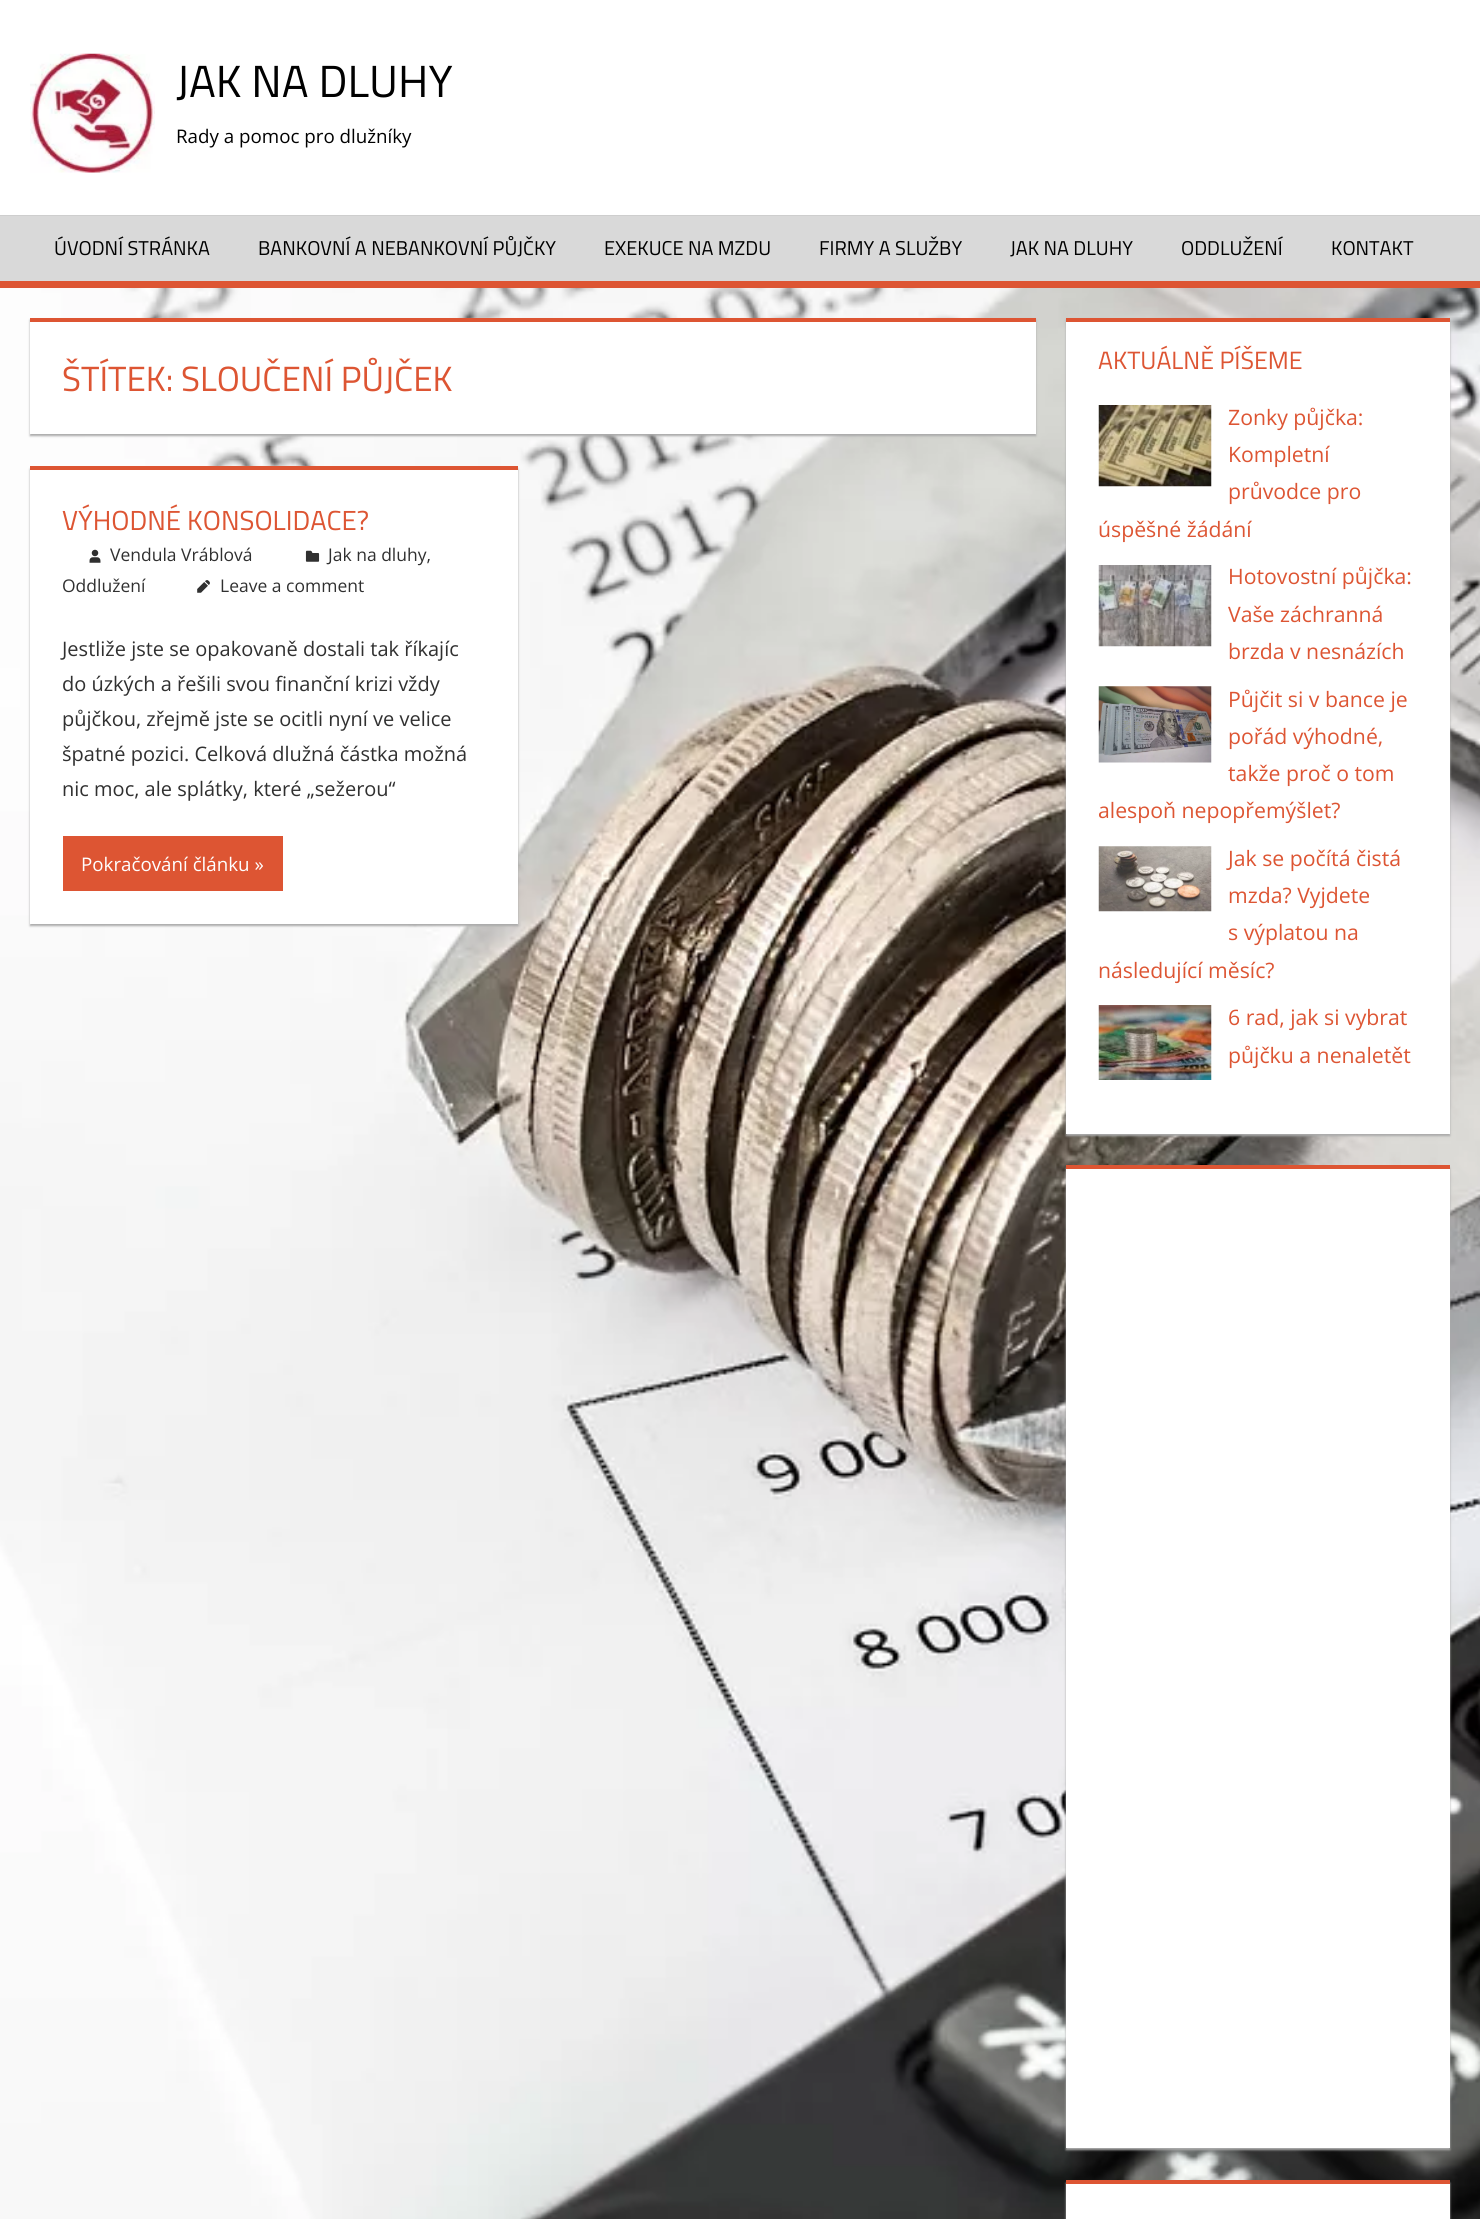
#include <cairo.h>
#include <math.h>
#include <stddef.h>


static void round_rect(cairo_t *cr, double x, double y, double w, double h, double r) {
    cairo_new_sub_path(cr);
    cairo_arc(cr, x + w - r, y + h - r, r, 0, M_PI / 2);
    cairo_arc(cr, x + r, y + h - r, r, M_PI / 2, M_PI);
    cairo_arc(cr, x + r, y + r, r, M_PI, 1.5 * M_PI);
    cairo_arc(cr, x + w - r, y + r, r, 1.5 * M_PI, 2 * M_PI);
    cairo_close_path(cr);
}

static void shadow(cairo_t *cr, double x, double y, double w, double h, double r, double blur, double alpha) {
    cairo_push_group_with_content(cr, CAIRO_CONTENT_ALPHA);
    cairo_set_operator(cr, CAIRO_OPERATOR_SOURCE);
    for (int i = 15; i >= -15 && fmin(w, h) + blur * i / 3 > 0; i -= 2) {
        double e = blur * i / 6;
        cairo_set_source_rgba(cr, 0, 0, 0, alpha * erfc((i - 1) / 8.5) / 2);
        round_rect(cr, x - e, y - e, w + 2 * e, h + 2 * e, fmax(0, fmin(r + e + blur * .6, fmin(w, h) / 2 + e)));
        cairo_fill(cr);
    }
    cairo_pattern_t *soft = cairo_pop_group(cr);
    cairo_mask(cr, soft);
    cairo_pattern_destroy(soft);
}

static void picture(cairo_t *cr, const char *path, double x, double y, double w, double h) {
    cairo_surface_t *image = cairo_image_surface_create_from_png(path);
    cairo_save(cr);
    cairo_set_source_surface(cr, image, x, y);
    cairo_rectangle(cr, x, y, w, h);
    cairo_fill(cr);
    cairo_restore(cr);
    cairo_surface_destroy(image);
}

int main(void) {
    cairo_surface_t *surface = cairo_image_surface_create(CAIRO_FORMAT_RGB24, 1480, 2219);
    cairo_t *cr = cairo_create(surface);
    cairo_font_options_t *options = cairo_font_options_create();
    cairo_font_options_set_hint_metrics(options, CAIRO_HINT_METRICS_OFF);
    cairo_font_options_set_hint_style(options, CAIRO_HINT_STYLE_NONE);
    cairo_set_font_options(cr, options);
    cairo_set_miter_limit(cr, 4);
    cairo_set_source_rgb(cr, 1, 1, 1);
    cairo_paint(cr);
    picture(cr, "img1.png", 0, 288, 1480, 1931);
    picture(cr, "img2.png", 30, 53, 125, 120);
    cairo_select_font_face(cr, "Titillium Web", CAIRO_FONT_SLANT_NORMAL, CAIRO_FONT_WEIGHT_NORMAL);
    cairo_set_font_size(cr, 45);
    cairo_set_source_rgb(cr, 0, 0, 0);
    cairo_move_to(cr, 176, 97);
    cairo_show_text(cr, "JAK NA DLUHY");
    cairo_select_font_face(cr, "Open Sans", CAIRO_FONT_SLANT_NORMAL, CAIRO_FONT_WEIGHT_NORMAL);
    cairo_set_font_size(cr, 18.75);
    cairo_move_to(cr, 176, 143);
    cairo_show_text(cr, "Rady a pomoc pro dlužníky");
    cairo_set_source_rgb(cr, 0.851, 0.851, 0.851);
    cairo_rectangle(cr, 0, 216, 1480, 65);
    cairo_fill(cr);
    cairo_set_source_rgb(cr, 0.808, 0.808, 0.808);
    cairo_rectangle(cr, 0, 215, 1480, 1);
    cairo_fill(cr);
    cairo_set_source_rgb(cr, 0.867, 0.333, 0.2);
    cairo_rectangle(cr, 0, 281, 1480, 7);
    cairo_fill(cr);
    cairo_select_font_face(cr, "Titillium Web", CAIRO_FONT_SLANT_NORMAL, CAIRO_FONT_WEIGHT_NORMAL);
    cairo_set_font_size(cr, 20);
    cairo_set_source_rgb(cr, 0, 0, 0);
    cairo_move_to(cr, 54, 255);
    cairo_show_text(cr, "ÚVODNÍ STRÁNKA");
    cairo_move_to(cr, 258, 255);
    cairo_show_text(cr, "BANKOVNÍ A NEBANKOVNÍ PŮJČKY");
    cairo_move_to(cr, 604, 255);
    cairo_show_text(cr, "EXEKUCE NA MZDU");
    cairo_move_to(cr, 819, 255);
    cairo_show_text(cr, "FIRMY A SLUŽBY");
    cairo_move_to(cr, 1010, 255);
    cairo_show_text(cr, "JAK NA DLUHY");
    cairo_move_to(cr, 1181, 255);
    cairo_show_text(cr, "ODDLUŽENÍ");
    cairo_move_to(cr, 1331, 255);
    cairo_show_text(cr, "KONTAKT");
    cairo_set_source_rgb(cr, 0.667, 0.667, 0.667);
    shadow(cr, 30, 320, 1006, 116, 0, 1, 1);
    cairo_set_source_rgb(cr, 1, 1, 1);
    cairo_rectangle(cr, 30, 322, 1006, 112);
    cairo_fill(cr);
    cairo_set_source_rgb(cr, 0.867, 0.333, 0.2);
    cairo_rectangle(cr, 30, 318, 1006, 4);
    cairo_fill(cr);
    cairo_set_font_size(cr, 35);
    cairo_move_to(cr, 62, 391);
    cairo_show_text(cr, "ŠTÍTEK: SLOUČENÍ PŮJČEK");
    cairo_set_source_rgb(cr, 0.667, 0.667, 0.667);
    shadow(cr, 30, 469, 488, 457, 0, 1, 1);
    cairo_set_source_rgb(cr, 1, 1, 1);
    cairo_rectangle(cr, 30, 470, 488, 454);
    cairo_fill(cr);
    cairo_set_source_rgb(cr, 0.867, 0.333, 0.2);
    cairo_rectangle(cr, 30, 466, 488, 4);
    cairo_fill(cr);
    cairo_set_font_size(cr, 27.5);
    cairo_move_to(cr, 62, 530);
    cairo_show_text(cr, "VÝHODNÉ KONSOLIDACE?");
    picture(cr, "img3.png", 89, 549, 12, 14);
    cairo_select_font_face(cr, "Open Sans", CAIRO_FONT_SLANT_NORMAL, CAIRO_FONT_WEIGHT_NORMAL);
    cairo_set_font_size(cr, 17.5);
    cairo_set_source_rgb(cr, 0.188, 0.188, 0.188);
    cairo_move_to(cr, 110, 561);
    cairo_show_text(cr, "Vendula Vráblová");
    picture(cr, "img4.png", 305, 550, 15, 12);
    cairo_move_to(cr, 328, 561);
    cairo_show_text(cr, "Jak na dluhy,");
    cairo_move_to(cr, 62, 592);
    cairo_show_text(cr, "Oddlužení");
    picture(cr, "img5.png", 197, 580, 13, 13);
    cairo_move_to(cr, 220, 592);
    cairo_show_text(cr, "Leave a comment");
    cairo_set_font_size(cr, 20);
    cairo_move_to(cr, 62, 656);
    cairo_show_text(cr, "Jestliže jste se opakovaně dostali tak říkajíc");
    cairo_move_to(cr, 62, 691);
    cairo_show_text(cr, "do úzkých a řešili svou finanční krizi vždy");
    cairo_move_to(cr, 62, 726);
    cairo_show_text(cr, "půjčkou, zřejmě jste se ocitli nyní ve velice");
    cairo_move_to(cr, 62, 761);
    cairo_show_text(cr, "špatné pozici. Celková dlužná částka možná");
    cairo_move_to(cr, 62, 796);
    cairo_show_text(cr, "nic moc, ale splátky, které „sežerou“");
    cairo_set_source_rgb(cr, 0.867, 0.333, 0.2);
    cairo_rectangle(cr, 63, 836, 220, 55);
    cairo_fill(cr);
    cairo_set_font_size(cr, 18.75);
    cairo_set_source_rgb(cr, 1, 1, 1);
    cairo_move_to(cr, 81, 871);
    cairo_show_text(cr, "Pokračování článku »");
    cairo_set_source_rgb(cr, 0.667, 0.667, 0.667);
    shadow(cr, 1066, 320, 384, 816, 0, 1, 1);
    cairo_set_source_rgb(cr, 1, 1, 1);
    cairo_rectangle(cr, 1066, 322, 384, 812);
    cairo_fill(cr);
    cairo_set_source_rgb(cr, 0.867, 0.333, 0.2);
    cairo_rectangle(cr, 1066, 318, 384, 4);
    cairo_fill(cr);
    cairo_select_font_face(cr, "Titillium Web", CAIRO_FONT_SLANT_NORMAL, CAIRO_FONT_WEIGHT_NORMAL);
    cairo_set_font_size(cr, 25);
    cairo_move_to(cr, 1098, 369);
    cairo_show_text(cr, "AKTUÁLNĚ PÍŠEME");
    picture(cr, "img6.png", 1098, 405, 114, 82);
    cairo_select_font_face(cr, "Open Sans", CAIRO_FONT_SLANT_NORMAL, CAIRO_FONT_WEIGHT_NORMAL);
    cairo_set_font_size(cr, 21.25);
    cairo_move_to(cr, 1228, 425);
    cairo_show_text(cr, "Zonky půjčka:");
    cairo_move_to(cr, 1228, 462);
    cairo_show_text(cr, "Kompletní");
    cairo_move_to(cr, 1228, 499);
    cairo_show_text(cr, "průvodce pro");
    cairo_move_to(cr, 1098, 537);
    cairo_show_text(cr, "úspěšné žádání");
    picture(cr, "img7.png", 1098, 565, 114, 82);
    cairo_move_to(cr, 1228, 584);
    cairo_show_text(cr, "Hotovostní půjčka:");
    cairo_move_to(cr, 1228, 622);
    cairo_show_text(cr, "Vaše záchranná");
    cairo_move_to(cr, 1228, 659);
    cairo_show_text(cr, "brzda v nesnázích");
    picture(cr, "img8.png", 1098, 686, 114, 77);
    cairo_move_to(cr, 1228, 707);
    cairo_show_text(cr, "Půjčit si v bance je");
    cairo_move_to(cr, 1228, 744);
    cairo_show_text(cr, "pořád výhodné,");
    cairo_move_to(cr, 1228, 781);
    cairo_show_text(cr, "takže proč o tom");
    cairo_move_to(cr, 1098, 818);
    cairo_show_text(cr, "alespoň nepopřemýšlet?");
    picture(cr, "img9.png", 1098, 846, 114, 66);
    cairo_move_to(cr, 1228, 866);
    cairo_show_text(cr, "Jak se počítá čistá");
    cairo_move_to(cr, 1228, 903);
    cairo_show_text(cr, "mzda? Vyjdete");
    cairo_move_to(cr, 1228, 940);
    cairo_show_text(cr, "s výplatou na");
    cairo_move_to(cr, 1098, 978);
    cairo_show_text(cr, "následující měsíc?");
    picture(cr, "img10.png", 1098, 1005, 114, 75);
    cairo_move_to(cr, 1228, 1025);
    cairo_show_text(cr, "6 rad, jak si vybrat");
    cairo_move_to(cr, 1228, 1063);
    cairo_show_text(cr, "půjčku a nenaletět");
    cairo_set_source_rgb(cr, 0.667, 0.667, 0.667);
    shadow(cr, 1066, 1168, 384, 982, 0, 1, 1);
    cairo_set_source_rgb(cr, 1, 1, 1);
    cairo_rectangle(cr, 1066, 1169, 384, 979);
    cairo_fill(cr);
    cairo_set_source_rgb(cr, 0.867, 0.333, 0.2);
    cairo_rectangle(cr, 1066, 1165, 384, 4);
    cairo_fill(cr);
    cairo_set_source_rgb(cr, 0.667, 0.667, 0.667);
    shadow(cr, 1066, 2183, 384, 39, 0, 1, 1);
    cairo_set_source_rgb(cr, 1, 1, 1);
    cairo_rectangle(cr, 1066, 2184, 384, 35);
    cairo_fill(cr);
    cairo_set_source_rgb(cr, 0.867, 0.333, 0.2);
    cairo_rectangle(cr, 1066, 2180, 384, 4);
    cairo_fill(cr);
    cairo_surface_write_to_png(surface, "page.png");
    cairo_font_options_destroy(options);
    cairo_destroy(cr);
    cairo_surface_destroy(surface);
    return 0;
}
